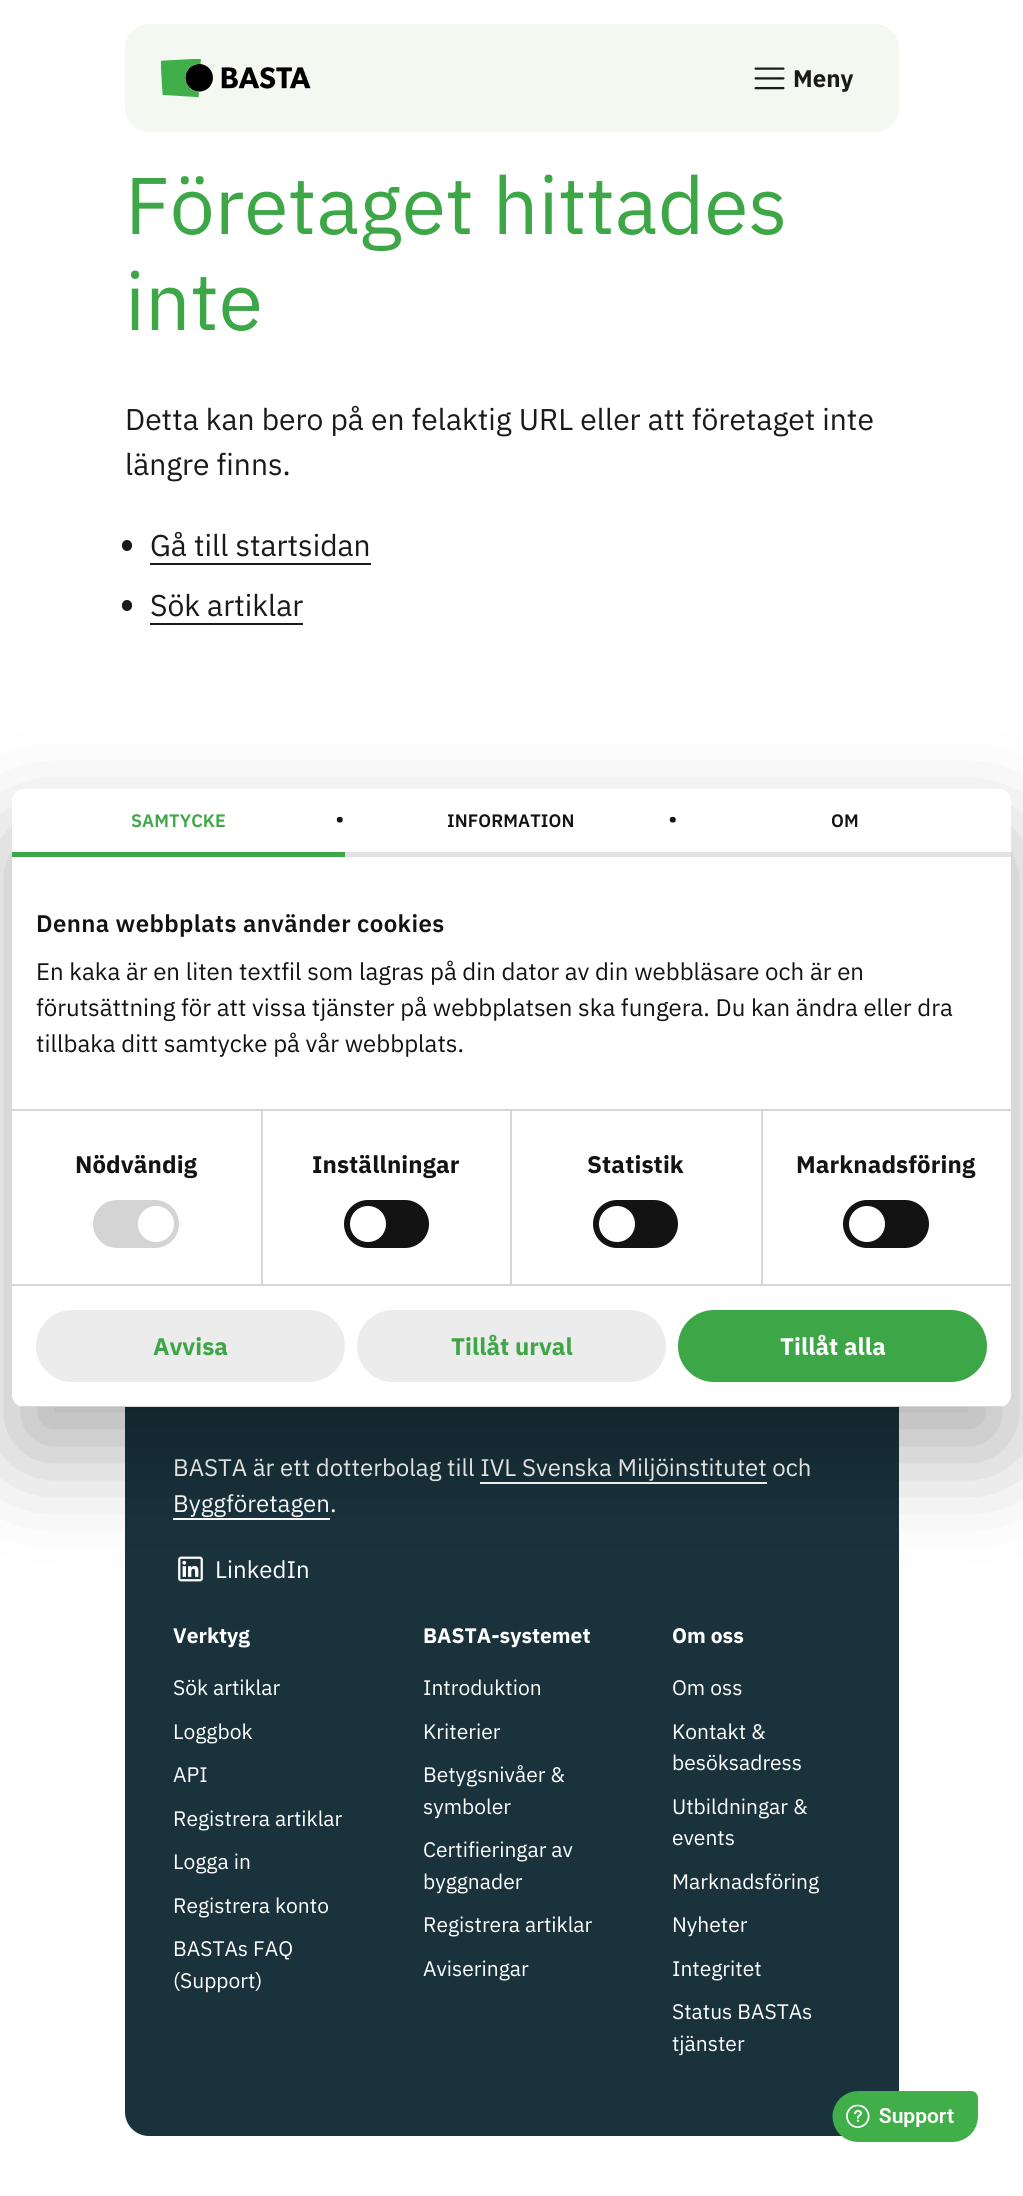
#include <cairo.h>
#include <math.h>
#include <stddef.h>


static void spaced_text(cairo_t *cr, double x, double y, const char *s, double letter, double word) {
    cairo_move_to(cr, x, y);
    while (*s) {
        char ch[5] = {0};
        int n = 0;
        do ch[n++] = *s++; while ((*s & 0xC0) == 0x80);
        cairo_show_text(cr, ch);
        cairo_rel_move_to(cr, letter + word * (*ch == ' '), 0);
    }
}

static void round_rect(cairo_t *cr, double x, double y, double w, double h, double r) {
    cairo_new_sub_path(cr);
    cairo_arc(cr, x + w - r, y + h - r, r, 0, M_PI / 2);
    cairo_arc(cr, x + r, y + h - r, r, M_PI / 2, M_PI);
    cairo_arc(cr, x + r, y + r, r, M_PI, 1.5 * M_PI);
    cairo_arc(cr, x + w - r, y + r, r, 1.5 * M_PI, 2 * M_PI);
    cairo_close_path(cr);
}

static void shadow(cairo_t *cr, double x, double y, double w, double h, double r, double blur, double alpha) {
    cairo_push_group_with_content(cr, CAIRO_CONTENT_ALPHA);
    cairo_set_operator(cr, CAIRO_OPERATOR_SOURCE);
    for (int i = 15; i >= -15 && fmin(w, h) + blur * i / 3 > 0; i -= 2) {
        double e = blur * i / 6;
        cairo_set_source_rgba(cr, 0, 0, 0, alpha * erfc((i - 1) / 8.5) / 2);
        round_rect(cr, x - e, y - e, w + 2 * e, h + 2 * e, fmax(0, fmin(r + e + blur * .6, fmin(w, h) / 2 + e)));
        cairo_fill(cr);
    }
    cairo_pattern_t *soft = cairo_pop_group(cr);
    cairo_mask(cr, soft);
    cairo_pattern_destroy(soft);
}

static void picture(cairo_t *cr, const char *path, double x, double y, double w, double h) {
    cairo_surface_t *image = cairo_image_surface_create_from_png(path);
    cairo_save(cr);
    cairo_set_source_surface(cr, image, x, y);
    cairo_rectangle(cr, x, y, w, h);
    cairo_fill(cr);
    cairo_restore(cr);
    cairo_surface_destroy(image);
}

int main(void) {
    cairo_surface_t *surface = cairo_image_surface_create(CAIRO_FORMAT_RGB24, 1023, 2196);
    cairo_t *cr = cairo_create(surface);
    cairo_font_options_t *options = cairo_font_options_create();
    cairo_font_options_set_hint_metrics(options, CAIRO_HINT_METRICS_OFF);
    cairo_font_options_set_hint_style(options, CAIRO_HINT_STYLE_NONE);
    cairo_set_font_options(cr, options);
    cairo_set_miter_limit(cr, 4);
    cairo_set_source_rgb(cr, 1, 1, 1);
    cairo_paint(cr);
    cairo_set_source_rgb(cr, 0.953, 0.969, 0.941);
    round_rect(cr, 125, 24, 774, 108, 24);
    cairo_fill(cr);
    picture(cr, "img1.png", 161, 59, 150, 39);
    picture(cr, "img2.png", 754, 67, 31, 23);
    cairo_select_font_face(cr, "IBM Plex Sans", CAIRO_FONT_SLANT_NORMAL, CAIRO_FONT_WEIGHT_BOLD);
    cairo_set_font_size(cr, 24);
    cairo_set_source_rgb(cr, 0.102, 0.102, 0.102);
    cairo_move_to(cr, 793, 87);
    cairo_show_text(cr, "Meny");
    cairo_select_font_face(cr, "IBM Plex Sans", CAIRO_FONT_SLANT_NORMAL, CAIRO_FONT_WEIGHT_NORMAL);
    cairo_set_font_size(cr, 80.25);
    cairo_set_source_rgb(cr, 0.239, 0.651, 0.275);
    cairo_move_to(cr, 125, 234);
    cairo_show_text(cr, "Företaget hittades");
    cairo_move_to(cr, 125, 330);
    cairo_show_text(cr, "inte");
    cairo_set_font_size(cr, 30);
    cairo_set_source_rgb(cr, 0.102, 0.102, 0.102);
    cairo_move_to(cr, 125, 430);
    cairo_show_text(cr, "Detta kan bero på en felaktig URL eller att företaget inte");
    cairo_move_to(cr, 125, 475);
    cairo_show_text(cr, "längre finns.");
    round_rect(cr, 122, 540, 10, 11, 5);
    cairo_fill(cr);
    cairo_move_to(cr, 150, 556);
    cairo_show_text(cr, "Gå till startsidan");
    cairo_rectangle(cr, 150, 563, 221, 2);
    cairo_fill(cr);
    round_rect(cr, 122, 600, 10, 11, 5);
    cairo_fill(cr);
    cairo_move_to(cr, 150, 616);
    cairo_show_text(cr, "Sök artiklar");
    cairo_rectangle(cr, 150, 623, 153, 2);
    cairo_fill(cr);
    cairo_set_source_rgb(cr, 0.098, 0.196, 0.235);
    round_rect(cr, 125, 1092, 774, 1044, 24);
    cairo_fill(cr);
    cairo_set_font_size(cr, 24);
    cairo_set_source_rgb(cr, 1, 1, 1);
    cairo_move_to(cr, 173, 1476);
    cairo_show_text(cr, "BASTA är ett dotterbolag till IVL Svenska Miljöinstitutet och");
    cairo_rectangle(cr, 480, 1482, 287, 2);
    cairo_fill(cr);
    cairo_move_to(cr, 173, 1512);
    cairo_show_text(cr, "Byggföretagen.");
    cairo_rectangle(cr, 173, 1518, 157, 2);
    cairo_fill(cr);
    picture(cr, "img3.png", 178, 1556, 25, 26);
    cairo_move_to(cr, 215, 1578);
    cairo_show_text(cr, "LinkedIn");
    cairo_select_font_face(cr, "IBM Plex Sans", CAIRO_FONT_SLANT_NORMAL, CAIRO_FONT_WEIGHT_BOLD);
    cairo_set_font_size(cr, 21);
    cairo_move_to(cr, 173, 1643);
    cairo_show_text(cr, "Verktyg");
    cairo_select_font_face(cr, "IBM Plex Sans", CAIRO_FONT_SLANT_NORMAL, CAIRO_FONT_WEIGHT_NORMAL);
    cairo_move_to(cr, 173, 1695);
    cairo_show_text(cr, "Sök artiklar");
    cairo_move_to(cr, 173, 1739);
    cairo_show_text(cr, "Loggbok");
    cairo_move_to(cr, 173, 1782);
    cairo_show_text(cr, "API");
    cairo_move_to(cr, 173, 1826);
    cairo_show_text(cr, "Registrera artiklar");
    cairo_move_to(cr, 173, 1869);
    cairo_show_text(cr, "Logga in");
    cairo_move_to(cr, 173, 1913);
    cairo_show_text(cr, "Registrera konto");
    cairo_move_to(cr, 173, 1956);
    cairo_show_text(cr, "BASTAs FAQ");
    cairo_move_to(cr, 173, 1988);
    cairo_show_text(cr, "(Support)");
    cairo_select_font_face(cr, "IBM Plex Sans", CAIRO_FONT_SLANT_NORMAL, CAIRO_FONT_WEIGHT_BOLD);
    cairo_move_to(cr, 423, 1643);
    cairo_show_text(cr, "BASTA-systemet");
    cairo_select_font_face(cr, "IBM Plex Sans", CAIRO_FONT_SLANT_NORMAL, CAIRO_FONT_WEIGHT_NORMAL);
    cairo_move_to(cr, 423, 1695);
    cairo_show_text(cr, "Introduktion");
    cairo_move_to(cr, 423, 1739);
    cairo_show_text(cr, "Kriterier");
    cairo_move_to(cr, 423, 1782);
    cairo_show_text(cr, "Betygsnivåer &");
    cairo_move_to(cr, 423, 1814);
    cairo_show_text(cr, "symboler");
    cairo_move_to(cr, 423, 1857);
    cairo_show_text(cr, "Certifieringar av");
    cairo_move_to(cr, 423, 1889);
    cairo_show_text(cr, "byggnader");
    cairo_move_to(cr, 423, 1932);
    cairo_show_text(cr, "Registrera artiklar");
    cairo_move_to(cr, 423, 1976);
    cairo_show_text(cr, "Aviseringar");
    cairo_select_font_face(cr, "IBM Plex Sans", CAIRO_FONT_SLANT_NORMAL, CAIRO_FONT_WEIGHT_BOLD);
    cairo_move_to(cr, 672, 1643);
    cairo_show_text(cr, "Om oss");
    cairo_select_font_face(cr, "IBM Plex Sans", CAIRO_FONT_SLANT_NORMAL, CAIRO_FONT_WEIGHT_NORMAL);
    cairo_move_to(cr, 672, 1695);
    cairo_show_text(cr, "Om oss");
    cairo_move_to(cr, 672, 1739);
    cairo_show_text(cr, "Kontakt &");
    cairo_move_to(cr, 672, 1770);
    cairo_show_text(cr, "besöksadress");
    cairo_move_to(cr, 672, 1814);
    cairo_show_text(cr, "Utbildningar &");
    cairo_move_to(cr, 672, 1845);
    cairo_show_text(cr, "events");
    cairo_move_to(cr, 672, 1889);
    cairo_show_text(cr, "Marknadsföring");
    cairo_move_to(cr, 672, 1932);
    cairo_show_text(cr, "Nyheter");
    cairo_move_to(cr, 672, 1976);
    cairo_show_text(cr, "Integritet");
    cairo_move_to(cr, 672, 2019);
    cairo_show_text(cr, "Status BASTAs");
    cairo_move_to(cr, 672, 2051);
    cairo_show_text(cr, "tjänster");
    cairo_set_source_rgb(cr, 0, 0, 0);
    shadow(cr, 12, 837, 999, 618, 12, 51, 0.3);
    cairo_set_source_rgb(cr, 1, 1, 1);
    round_rect(cr, 12, 789, 999, 618, 12);
    cairo_fill(cr);
    cairo_set_source_rgb(cr, 0.239, 0.651, 0.275);
    cairo_rectangle(cr, 12, 852, 333, 5);
    cairo_fill(cr);
    cairo_select_font_face(cr, "IBM Plex Sans SemiBold", CAIRO_FONT_SLANT_NORMAL, CAIRO_FONT_WEIGHT_NORMAL);
    cairo_set_font_size(cr, 18);
    spaced_text(cr, 131, 827, "SAMTYCKE", 0.1, 0);
    cairo_select_font_face(cr, "IBM Plex Sans", CAIRO_FONT_SLANT_NORMAL, CAIRO_FONT_WEIGHT_NORMAL);
    cairo_set_font_size(cr, 24);
    cairo_set_source_rgb(cr, 0.078, 0.078, 0.078);
    spaced_text(cr, 335, 827, "•", 0.1, 0);
    cairo_set_source_rgb(cr, 0.886, 0.886, 0.886);
    cairo_rectangle(cr, 345, 852, 666, 5);
    cairo_fill(cr);
    cairo_select_font_face(cr, "IBM Plex Sans SemiBold", CAIRO_FONT_SLANT_NORMAL, CAIRO_FONT_WEIGHT_NORMAL);
    cairo_set_font_size(cr, 18);
    cairo_set_source_rgb(cr, 0.078, 0.078, 0.078);
    spaced_text(cr, 447, 827, "INFORMATION", 0.1, 0);
    cairo_select_font_face(cr, "IBM Plex Sans", CAIRO_FONT_SLANT_NORMAL, CAIRO_FONT_WEIGHT_NORMAL);
    cairo_set_font_size(cr, 24);
    spaced_text(cr, 668, 827, "•", 0.1, 0);
    cairo_select_font_face(cr, "IBM Plex Sans SemiBold", CAIRO_FONT_SLANT_NORMAL, CAIRO_FONT_WEIGHT_NORMAL);
    cairo_set_font_size(cr, 18);
    spaced_text(cr, 831, 827, "OM", 0.1, 0);
    cairo_set_source_rgb(cr, 0.839, 0.839, 0.839);
    cairo_rectangle(cr, 261, 1110, 2, 174);
    cairo_fill(cr);
    cairo_rectangle(cr, 510, 1110, 2, 174);
    cairo_fill(cr);
    cairo_rectangle(cr, 761, 1110, 2, 174);
    cairo_fill(cr);
    cairo_rectangle(cr, 12, 1109, 999, 2);
    cairo_fill(cr);
    cairo_set_font_size(cr, 24);
    cairo_set_source_rgb(cr, 0.078, 0.078, 0.078);
    spaced_text(cr, 36, 932, "Denna webbplats använder cookies", 0.4, 0);
    cairo_select_font_face(cr, "IBM Plex Sans", CAIRO_FONT_SLANT_NORMAL, CAIRO_FONT_WEIGHT_NORMAL);
    cairo_move_to(cr, 36, 980);
    cairo_show_text(cr, "En kaka är en liten textfil som lagras på din dator av din webbläsare och är en");
    cairo_move_to(cr, 36, 1016);
    cairo_show_text(cr, "förutsättning för att vissa tjänster på webbplatsen ska fungera. Du kan ändra eller dra");
    cairo_move_to(cr, 36, 1052);
    cairo_show_text(cr, "tillbaka ditt samtycke på vår webbplats.");
    cairo_set_source_rgb(cr, 0.839, 0.839, 0.839);
    cairo_rectangle(cr, 12, 1284, 999, 2);
    cairo_fill(cr);
    cairo_select_font_face(cr, "IBM Plex Sans", CAIRO_FONT_SLANT_NORMAL, CAIRO_FONT_WEIGHT_BOLD);
    cairo_set_source_rgb(cr, 0.078, 0.078, 0.078);
    spaced_text(cr, 75, 1173, "Nödvändig", 0.1, 0);
    cairo_set_source_rgb(cr, 0.831, 0.831, 0.831);
    round_rect(cr, 93, 1200, 86, 48, 24);
    cairo_fill(cr);
    cairo_set_source_rgb(cr, 1, 1, 1);
    cairo_arc(cr, 156, 1224, 18, 0, 2 * M_PI);
    cairo_fill(cr);
    cairo_set_source_rgb(cr, 0.078, 0.078, 0.078);
    spaced_text(cr, 312, 1173, "Inställningar", 0.1, 0);
    round_rect(cr, 344, 1200, 85, 48, 24);
    cairo_fill(cr);
    cairo_set_source_rgb(cr, 1, 1, 1);
    cairo_arc(cr, 368, 1224, 18, 0, 2 * M_PI);
    cairo_fill(cr);
    cairo_set_source_rgb(cr, 0.078, 0.078, 0.078);
    spaced_text(cr, 587, 1173, "Statistik", 0.1, 0);
    round_rect(cr, 593, 1200, 85, 48, 24);
    cairo_fill(cr);
    cairo_set_source_rgb(cr, 1, 1, 1);
    cairo_arc(cr, 617, 1224, 18, 0, 2 * M_PI);
    cairo_fill(cr);
    cairo_set_source_rgb(cr, 0.078, 0.078, 0.078);
    spaced_text(cr, 796, 1173, "Marknadsföring", 0.1, 0);
    round_rect(cr, 843, 1200, 86, 48, 24);
    cairo_fill(cr);
    cairo_set_source_rgb(cr, 1, 1, 1);
    cairo_arc(cr, 867, 1224, 18, 0, 2 * M_PI);
    cairo_fill(cr);
    cairo_save(cr);
    round_rect(cr, 12, 789, 999, 618, 12);
    cairo_clip(cr);
    cairo_set_source_rgb(cr, 0.839, 0.839, 0.839);
    cairo_rectangle(cr, 12, 1406, 999, 1);
    cairo_fill(cr);
    cairo_restore(cr);
    cairo_set_source_rgb(cr, 0.925, 0.925, 0.925);
    round_rect(cr, 37.5, 1311.5, 306, 69, 34.5);
    cairo_fill_preserve(cr);
    cairo_set_line_width(cr, 3);
    cairo_stroke(cr);
    cairo_set_source_rgb(cr, 0.239, 0.651, 0.275);
    cairo_move_to(cr, 153, 1355);
    cairo_show_text(cr, "Avvisa");
    cairo_set_source_rgb(cr, 0.925, 0.925, 0.925);
    round_rect(cr, 358.5, 1311.5, 306, 69, 34.5);
    cairo_fill_preserve(cr);
    cairo_stroke(cr);
    cairo_set_source_rgb(cr, 0.239, 0.651, 0.275);
    cairo_move_to(cr, 451, 1355);
    cairo_show_text(cr, "Tillåt urval");
    round_rect(cr, 679.5, 1311.5, 306, 69, 34.5);
    cairo_fill_preserve(cr);
    cairo_stroke(cr);
    cairo_set_source_rgb(cr, 1, 1, 1);
    cairo_move_to(cr, 780, 1355);
    cairo_show_text(cr, "Tillåt alla");
    picture(cr, "img4.png", 832, 2091, 146, 51);
    cairo_surface_write_to_png(surface, "page.png");
    cairo_font_options_destroy(options);
    cairo_destroy(cr);
    cairo_surface_destroy(surface);
    return 0;
}
